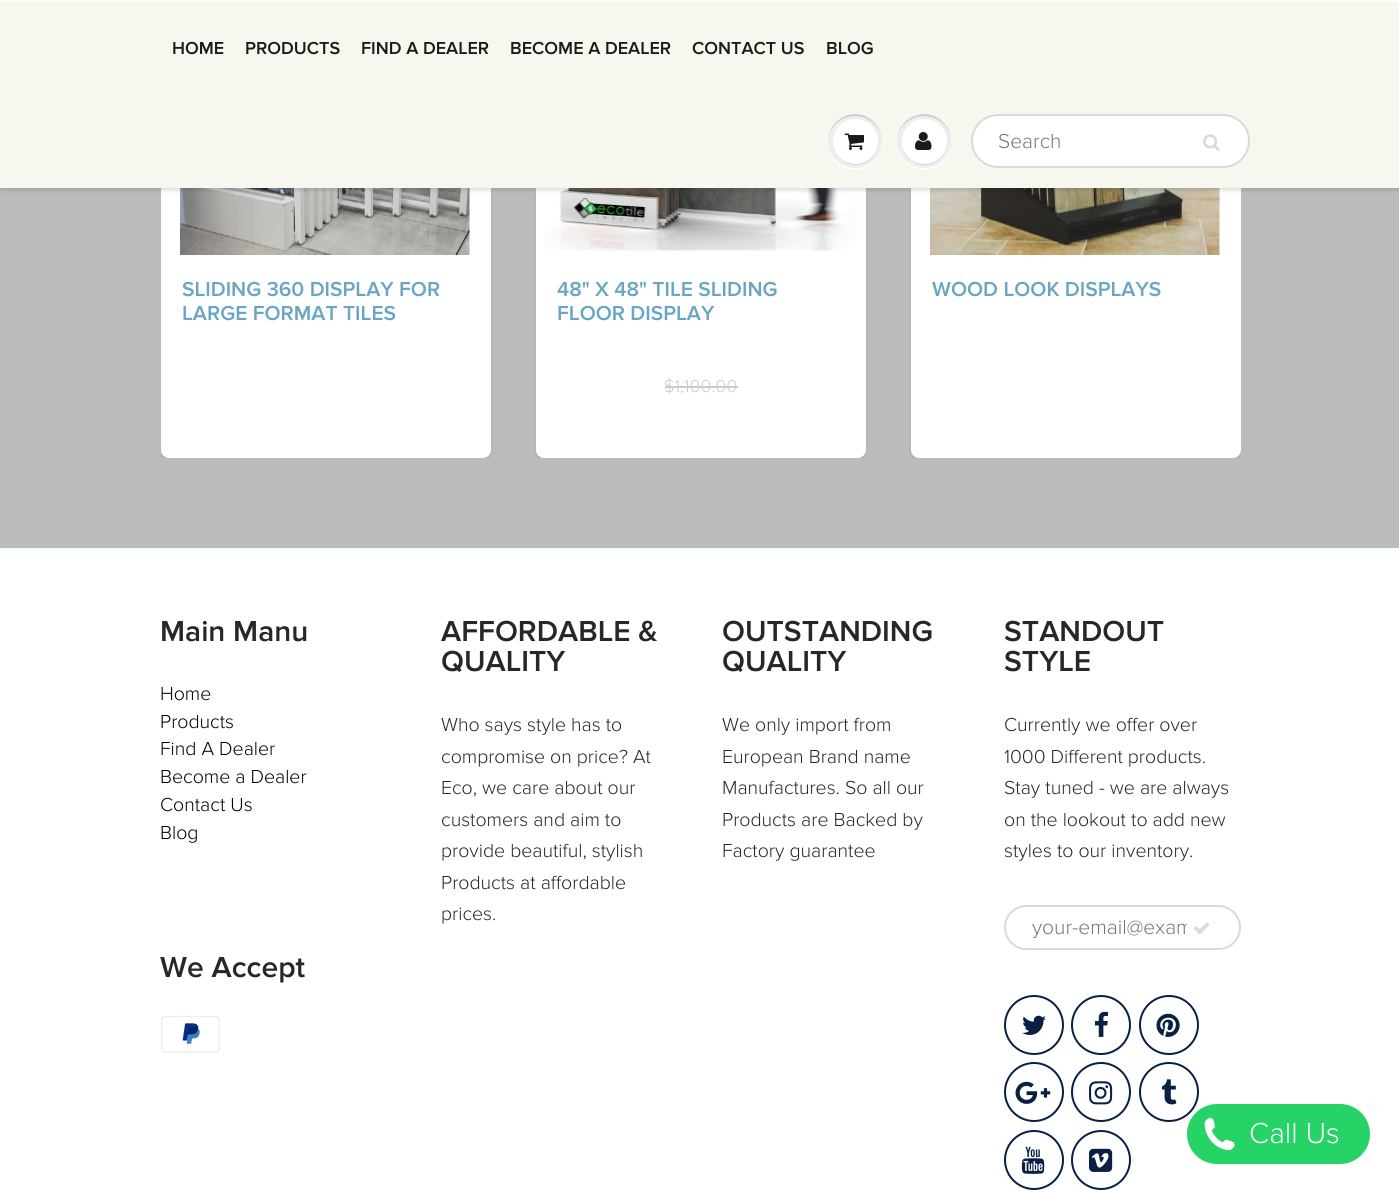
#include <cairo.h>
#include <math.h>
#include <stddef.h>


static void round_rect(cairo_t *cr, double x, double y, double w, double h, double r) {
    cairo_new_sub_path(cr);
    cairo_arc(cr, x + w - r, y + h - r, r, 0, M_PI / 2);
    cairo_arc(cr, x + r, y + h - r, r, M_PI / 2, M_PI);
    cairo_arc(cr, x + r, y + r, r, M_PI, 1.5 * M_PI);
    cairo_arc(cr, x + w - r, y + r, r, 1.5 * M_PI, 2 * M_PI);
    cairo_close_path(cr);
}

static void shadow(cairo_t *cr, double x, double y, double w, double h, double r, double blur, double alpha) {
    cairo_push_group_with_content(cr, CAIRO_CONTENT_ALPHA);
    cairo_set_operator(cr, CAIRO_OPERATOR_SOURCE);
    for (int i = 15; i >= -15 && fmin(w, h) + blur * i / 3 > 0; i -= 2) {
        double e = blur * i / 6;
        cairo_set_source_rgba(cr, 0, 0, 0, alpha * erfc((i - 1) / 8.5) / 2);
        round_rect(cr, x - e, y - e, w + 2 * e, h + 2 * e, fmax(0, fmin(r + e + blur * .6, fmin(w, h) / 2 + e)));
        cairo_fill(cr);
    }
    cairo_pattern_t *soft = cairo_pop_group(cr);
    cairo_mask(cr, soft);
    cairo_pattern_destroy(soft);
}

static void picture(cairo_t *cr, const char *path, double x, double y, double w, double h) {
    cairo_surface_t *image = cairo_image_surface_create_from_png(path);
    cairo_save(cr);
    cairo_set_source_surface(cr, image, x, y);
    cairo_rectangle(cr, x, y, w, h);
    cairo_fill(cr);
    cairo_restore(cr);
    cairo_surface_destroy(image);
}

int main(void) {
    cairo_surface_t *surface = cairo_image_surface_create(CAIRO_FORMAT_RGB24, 1399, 1193);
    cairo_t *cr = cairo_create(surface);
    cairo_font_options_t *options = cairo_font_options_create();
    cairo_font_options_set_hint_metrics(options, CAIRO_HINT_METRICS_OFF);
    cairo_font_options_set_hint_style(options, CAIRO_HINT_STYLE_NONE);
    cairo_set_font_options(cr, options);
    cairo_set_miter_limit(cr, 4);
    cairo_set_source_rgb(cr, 1, 1, 1);
    cairo_paint(cr);
    cairo_set_source_rgb(cr, 0.733, 0.733, 0.733);
    cairo_rectangle(cr, 0, 188, 1399, 360);
    cairo_fill(cr);
    cairo_save(cr);
    cairo_rectangle(cr, 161, 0, 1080, 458);
    cairo_clip(cr);
    cairo_set_source_rgb(cr, 0.043, 0.098, 0.11);
    shadow(cr, 161, -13, 330, 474, 8, 1.5, 0.1);
    cairo_restore(cr);
    cairo_set_source_rgb(cr, 1, 1, 1);
    round_rect(cr, 165, -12, 322, 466, 4);
    cairo_fill_preserve(cr);
    cairo_set_line_width(cr, 8);
    cairo_stroke(cr);
    picture(cr, "img4.png", 180, 188, 290, 67);
    cairo_save(cr);
    cairo_rectangle(cr, 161, 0, 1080, 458);
    cairo_clip(cr);
    cairo_set_source_rgb(cr, 0.043, 0.098, 0.11);
    shadow(cr, 536, -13, 330, 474, 8, 1.5, 0.1);
    cairo_restore(cr);
    round_rect(cr, 540, -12, 322, 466, 4);
    cairo_fill_preserve(cr);
    cairo_stroke(cr);
    picture(cr, "img5.png", 544, 188, 313, 63);
    cairo_save(cr);
    cairo_rectangle(cr, 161, 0, 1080, 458);
    cairo_clip(cr);
    cairo_set_source_rgb(cr, 0.043, 0.098, 0.11);
    shadow(cr, 911, -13, 330, 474, 8, 1.5, 0.1);
    cairo_restore(cr);
    round_rect(cr, 915, -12, 322, 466, 4);
    cairo_fill_preserve(cr);
    cairo_stroke(cr);
    picture(cr, "img6.png", 930, 188, 290, 67);
    cairo_set_source_rgb(cr, 0.043, 0.098, 0.11);
    shadow(cr, 0, 3, 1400, 188, 0, 1.5, 0.12);
    cairo_set_source_rgb(cr, 0.961, 0.969, 0.941);
    cairo_rectangle(cr, 0, 2, 1399, 186);
    cairo_fill(cr);
    cairo_set_source_rgb(cr, 1, 0.992, 0.988);
    cairo_rectangle(cr, 0, 0, 1399, 2);
    cairo_fill(cr);
    cairo_select_font_face(cr, "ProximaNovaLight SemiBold", CAIRO_FONT_SLANT_NORMAL, CAIRO_FONT_WEIGHT_NORMAL);
    cairo_set_font_size(cr, 18);
    cairo_set_source_rgb(cr, 0.11, 0.102, 0.102);
    cairo_move_to(cr, 172, 54);
    cairo_show_text(cr, "HOME");
    cairo_move_to(cr, 245, 54);
    cairo_show_text(cr, "PRODUCTS");
    cairo_move_to(cr, 361, 54);
    cairo_show_text(cr, "FIND A DEALER");
    cairo_move_to(cr, 510, 54);
    cairo_show_text(cr, "BECOME A DEALER");
    cairo_move_to(cr, 692, 54);
    cairo_show_text(cr, "CONTACT US");
    cairo_move_to(cr, 826, 54);
    cairo_show_text(cr, "BLOG");
    cairo_set_source_rgb(cr, 1, 1, 1);
    cairo_new_path(cr);
    cairo_move_to(cr, 828, 142);
    cairo_curve_to(cr, 827, 169, 862, 180, 877, 158);
    cairo_curve_to(cr, 881, 153, 882, 148, 882, 142);
    cairo_curve_to(cr, 881, 176, 829, 176, 828, 142);
    cairo_close_path(cr);
    cairo_fill(cr);
    cairo_set_source_rgb(cr, 0.929, 0.937, 0.937);
    cairo_arc(cr, 855, 141, 27, 0, 2 * M_PI);
    cairo_fill(cr);
    cairo_set_source_rgb(cr, 0.788, 0.796, 0.796);
    cairo_new_path(cr);
    cairo_move_to(cr, 855, 116);
    cairo_curve_to(cr, 870, 116, 882, 128, 882, 142);
    cairo_curve_to(cr, 882, 136, 880, 130, 877, 126);
    cairo_curve_to(cr, 862, 104, 828, 115, 828, 142);
    cairo_curve_to(cr, 828, 128, 840, 116, 855, 116);
    cairo_close_path(cr);
    cairo_fill(cr);
    cairo_new_path(cr);
    cairo_move_to(cr, 834, 149);
    cairo_curve_to(cr, 835, 153, 838, 158, 842, 160);
    cairo_curve_to(cr, 860, 174, 884, 155, 877, 135);
    cairo_curve_to(cr, 885, 162, 844, 176, 834, 149);
    cairo_close_path(cr);
    cairo_fill(cr);
    cairo_set_source_rgb(cr, 1, 1, 1);
    cairo_arc(cr, 855.5, 141.5, 22.5, 0, 2 * M_PI);
    cairo_fill(cr);
    cairo_new_path(cr);
    cairo_move_to(cr, 855, 120);
    cairo_curve_to(cr, 873, 120, 880, 137, 876, 150);
    cairo_curve_to(cr, 885, 128, 857, 109, 840, 125);
    cairo_curve_to(cr, 844, 122, 849, 120, 855, 120);
    cairo_close_path(cr);
    cairo_fill(cr);
    picture(cr, "img1.png", 844, 133, 20, 17);
    cairo_new_path(cr);
    cairo_move_to(cr, 897, 142);
    cairo_curve_to(cr, 897, 148, 898, 153, 902, 158);
    cairo_curve_to(cr, 917, 180, 952, 169, 951, 142);
    cairo_curve_to(cr, 950, 176, 898, 176, 897, 142);
    cairo_close_path(cr);
    cairo_fill(cr);
    cairo_set_source_rgb(cr, 0.929, 0.937, 0.937);
    cairo_arc(cr, 924, 141, 27, 0, 2 * M_PI);
    cairo_fill(cr);
    cairo_set_source_rgb(cr, 0.788, 0.796, 0.796);
    cairo_new_path(cr);
    cairo_move_to(cr, 924, 116);
    cairo_curve_to(cr, 939, 116, 951, 128, 951, 142);
    cairo_curve_to(cr, 951, 136, 949, 130, 946, 126);
    cairo_curve_to(cr, 931, 104, 897, 115, 897, 142);
    cairo_curve_to(cr, 897, 128, 909, 116, 924, 116);
    cairo_close_path(cr);
    cairo_fill(cr);
    cairo_new_path(cr);
    cairo_move_to(cr, 903, 149);
    cairo_curve_to(cr, 904, 153, 907, 158, 911, 160);
    cairo_curve_to(cr, 929, 174, 953, 155, 946, 135);
    cairo_curve_to(cr, 954, 162, 913, 176, 903, 149);
    cairo_close_path(cr);
    cairo_fill(cr);
    cairo_set_source_rgb(cr, 1, 1, 1);
    cairo_arc(cr, 924.5, 141.5, 22.5, 0, 2 * M_PI);
    cairo_fill(cr);
    cairo_new_path(cr);
    cairo_move_to(cr, 924, 120);
    cairo_curve_to(cr, 942, 120, 949, 137, 945, 150);
    cairo_curve_to(cr, 954, 128, 926, 109, 909, 125);
    cairo_curve_to(cr, 913, 122, 918, 120, 924, 120);
    cairo_close_path(cr);
    cairo_fill(cr);
    picture(cr, "img2.png", 915, 132, 17, 18);
    round_rect(cr, 972, 115, 277, 52, 26);
    cairo_fill_preserve(cr);
    cairo_set_source_rgb(cr, 0.843, 0.859, 0.859);
    cairo_set_line_width(cr, 2);
    cairo_stroke(cr);
    cairo_select_font_face(cr, "ProximaNovaLight Light", CAIRO_FONT_SLANT_NORMAL, CAIRO_FONT_WEIGHT_NORMAL);
    cairo_set_font_size(cr, 21);
    cairo_set_source_rgb(cr, 0.459, 0.459, 0.459);
    cairo_move_to(cr, 998, 148);
    cairo_show_text(cr, "Search");
    picture(cr, "img3.png", 1203, 134, 17, 17);
    cairo_select_font_face(cr, "ProximaNovaLight SemiBold", CAIRO_FONT_SLANT_NORMAL, CAIRO_FONT_WEIGHT_NORMAL);
    cairo_set_source_rgb(cr, 0.408, 0.651, 0.769);
    cairo_move_to(cr, 182, 296);
    cairo_show_text(cr, "SLIDING 360 DISPLAY FOR");
    cairo_move_to(cr, 182, 320);
    cairo_show_text(cr, "LARGE FORMAT TILES");
    cairo_move_to(cr, 557, 296);
    cairo_show_text(cr, "48\" X 48\" TILE SLIDING");
    cairo_move_to(cr, 557, 320);
    cairo_show_text(cr, "FLOOR DISPLAY");
    cairo_select_font_face(cr, "ProximaNovaLight Light", CAIRO_FONT_SLANT_NORMAL, CAIRO_FONT_WEIGHT_NORMAL);
    cairo_set_font_size(cr, 18);
    cairo_set_source_rgb(cr, 0.8, 0.8, 0.8);
    cairo_move_to(cr, 664, 392);
    cairo_show_text(cr, "$1,100.00");
    cairo_rectangle(cr, 665, 386, 73, 2);
    cairo_fill(cr);
    cairo_select_font_face(cr, "ProximaNovaLight SemiBold", CAIRO_FONT_SLANT_NORMAL, CAIRO_FONT_WEIGHT_NORMAL);
    cairo_set_font_size(cr, 21);
    cairo_set_source_rgb(cr, 0.408, 0.651, 0.769);
    cairo_move_to(cr, 932, 296);
    cairo_show_text(cr, "WOOD LOOK DISPLAYS");
    cairo_set_source_rgb(cr, 0.929, 1, 0.996);
    cairo_rectangle(cr, 0, 548, 1399, 2);
    cairo_fill(cr);
    cairo_set_font_size(cr, 30);
    cairo_set_source_rgb(cr, 0.157, 0.153, 0.153);
    cairo_move_to(cr, 160, 641);
    cairo_show_text(cr, "Main Manu");
    cairo_select_font_face(cr, "ProximaNovaLight Light", CAIRO_FONT_SLANT_NORMAL, CAIRO_FONT_WEIGHT_NORMAL);
    cairo_set_font_size(cr, 19.5);
    cairo_set_source_rgb(cr, 0, 0, 0);
    cairo_move_to(cr, 160, 700);
    cairo_show_text(cr, "Home");
    cairo_move_to(cr, 160, 728);
    cairo_show_text(cr, "Products");
    cairo_move_to(cr, 160, 755);
    cairo_show_text(cr, "Find A Dealer");
    cairo_move_to(cr, 160, 783);
    cairo_show_text(cr, "Become a Dealer");
    cairo_move_to(cr, 160, 811);
    cairo_show_text(cr, "Contact Us");
    cairo_move_to(cr, 160, 839);
    cairo_show_text(cr, "Blog");
    cairo_select_font_face(cr, "ProximaNovaLight SemiBold", CAIRO_FONT_SLANT_NORMAL, CAIRO_FONT_WEIGHT_NORMAL);
    cairo_set_font_size(cr, 30);
    cairo_set_source_rgb(cr, 0.157, 0.153, 0.153);
    cairo_move_to(cr, 441, 641);
    cairo_show_text(cr, "AFFORDABLE &");
    cairo_move_to(cr, 441, 671);
    cairo_show_text(cr, "QUALITY");
    cairo_select_font_face(cr, "ProximaNovaLight Light", CAIRO_FONT_SLANT_NORMAL, CAIRO_FONT_WEIGHT_NORMAL);
    cairo_set_font_size(cr, 19.5);
    cairo_move_to(cr, 441, 731);
    cairo_show_text(cr, "Who says style has to");
    cairo_move_to(cr, 441, 763);
    cairo_show_text(cr, "compromise on price? At");
    cairo_move_to(cr, 441, 794);
    cairo_show_text(cr, "Eco, we care about our");
    cairo_move_to(cr, 441, 826);
    cairo_show_text(cr, "customers and aim to");
    cairo_move_to(cr, 441, 857);
    cairo_show_text(cr, "provide beautiful, stylish");
    cairo_move_to(cr, 441, 889);
    cairo_show_text(cr, "Products at affordable");
    cairo_move_to(cr, 441, 920);
    cairo_show_text(cr, "prices.");
    cairo_select_font_face(cr, "ProximaNovaLight SemiBold", CAIRO_FONT_SLANT_NORMAL, CAIRO_FONT_WEIGHT_NORMAL);
    cairo_set_font_size(cr, 30);
    cairo_move_to(cr, 160, 977);
    cairo_show_text(cr, "We Accept");
    picture(cr, "img7.png", 161, 1016, 59, 37);
    cairo_move_to(cr, 722, 641);
    cairo_show_text(cr, "OUTSTANDING");
    cairo_move_to(cr, 722, 671);
    cairo_show_text(cr, "QUALITY");
    cairo_select_font_face(cr, "ProximaNovaLight Light", CAIRO_FONT_SLANT_NORMAL, CAIRO_FONT_WEIGHT_NORMAL);
    cairo_set_font_size(cr, 19.5);
    cairo_move_to(cr, 722, 731);
    cairo_show_text(cr, "We only import from");
    cairo_move_to(cr, 722, 763);
    cairo_show_text(cr, "European Brand name");
    cairo_move_to(cr, 722, 794);
    cairo_show_text(cr, "Manufactures. So all our");
    cairo_move_to(cr, 722, 826);
    cairo_show_text(cr, "Products are Backed by");
    cairo_move_to(cr, 722, 857);
    cairo_show_text(cr, "Factory guarantee");
    cairo_select_font_face(cr, "ProximaNovaLight SemiBold", CAIRO_FONT_SLANT_NORMAL, CAIRO_FONT_WEIGHT_NORMAL);
    cairo_set_font_size(cr, 30);
    cairo_move_to(cr, 1004, 641);
    cairo_show_text(cr, "STANDOUT");
    cairo_move_to(cr, 1004, 671);
    cairo_show_text(cr, "STYLE");
    cairo_select_font_face(cr, "ProximaNovaLight Light", CAIRO_FONT_SLANT_NORMAL, CAIRO_FONT_WEIGHT_NORMAL);
    cairo_set_font_size(cr, 19.5);
    cairo_move_to(cr, 1004, 731);
    cairo_show_text(cr, "Currently we offer over");
    cairo_move_to(cr, 1004, 763);
    cairo_show_text(cr, "1000 Different products.");
    cairo_move_to(cr, 1004, 794);
    cairo_show_text(cr, "Stay tuned - we are always");
    cairo_move_to(cr, 1004, 826);
    cairo_show_text(cr, "on the lookout to add new");
    cairo_move_to(cr, 1004, 857);
    cairo_show_text(cr, "styles to our inventory.");
    round_rect(cr, 1005, 906, 235, 43, 21.5);
    cairo_set_source_rgb(cr, 0.843, 0.859, 0.859);
    cairo_stroke(cr);
    cairo_save(cr);
    cairo_rectangle(cr, 1032, 915, 155, 26);
    cairo_clip(cr);
    cairo_set_font_size(cr, 21);
    cairo_set_source_rgb(cr, 0.459, 0.459, 0.459);
    cairo_move_to(cr, 1032, 934);
    cairo_show_text(cr, "your-email@exam");
    cairo_restore(cr);
    picture(cr, "img8.png", 1193, 922, 17, 13);
    cairo_arc(cr, 1034, 1025, 29, 0, 2 * M_PI);
    cairo_set_source_rgb(cr, 0.035, 0.125, 0.267);
    cairo_stroke(cr);
    picture(cr, "img9.png", 1022, 1015, 24, 20);
    cairo_arc(cr, 1101, 1025, 29, 0, 2 * M_PI);
    cairo_stroke(cr);
    picture(cr, "img10.png", 1094, 1011, 14, 26);
    cairo_arc(cr, 1169, 1025, 29, 0, 2 * M_PI);
    cairo_stroke(cr);
    picture(cr, "img11.png", 1156, 1013, 24, 24);
    cairo_arc(cr, 1034, 1092, 29, 0, 2 * M_PI);
    cairo_stroke(cr);
    picture(cr, "img12.png", 1015, 1081, 36, 23);
    cairo_arc(cr, 1101, 1092, 29, 0, 2 * M_PI);
    cairo_stroke(cr);
    picture(cr, "img13.png", 1089, 1081, 24, 24);
    cairo_arc(cr, 1169, 1092, 29, 0, 2 * M_PI);
    cairo_stroke(cr);
    picture(cr, "img14.png", 1162, 1079, 15, 26);
    cairo_arc(cr, 1034, 1160, 29, 0, 2 * M_PI);
    cairo_stroke(cr);
    picture(cr, "img15.png", 1021, 1146, 24, 28);
    cairo_arc(cr, 1101, 1160, 29, 0, 2 * M_PI);
    cairo_stroke(cr);
    picture(cr, "img16.png", 1089, 1148, 24, 24);
    cairo_set_source_rgb(cr, 0.145, 0.827, 0.4);
    round_rect(cr, 1187, 1104, 183, 60, 30);
    cairo_fill(cr);
    picture(cr, "img17.png", 1204, 1117, 31, 34);
    cairo_set_font_size(cr, 30);
    cairo_set_source_rgb(cr, 1, 1, 1);
    cairo_move_to(cr, 1249, 1143);
    cairo_show_text(cr, "Call Us");
    cairo_surface_write_to_png(surface, "page.png");
    cairo_font_options_destroy(options);
    cairo_destroy(cr);
    cairo_surface_destroy(surface);
    return 0;
}
